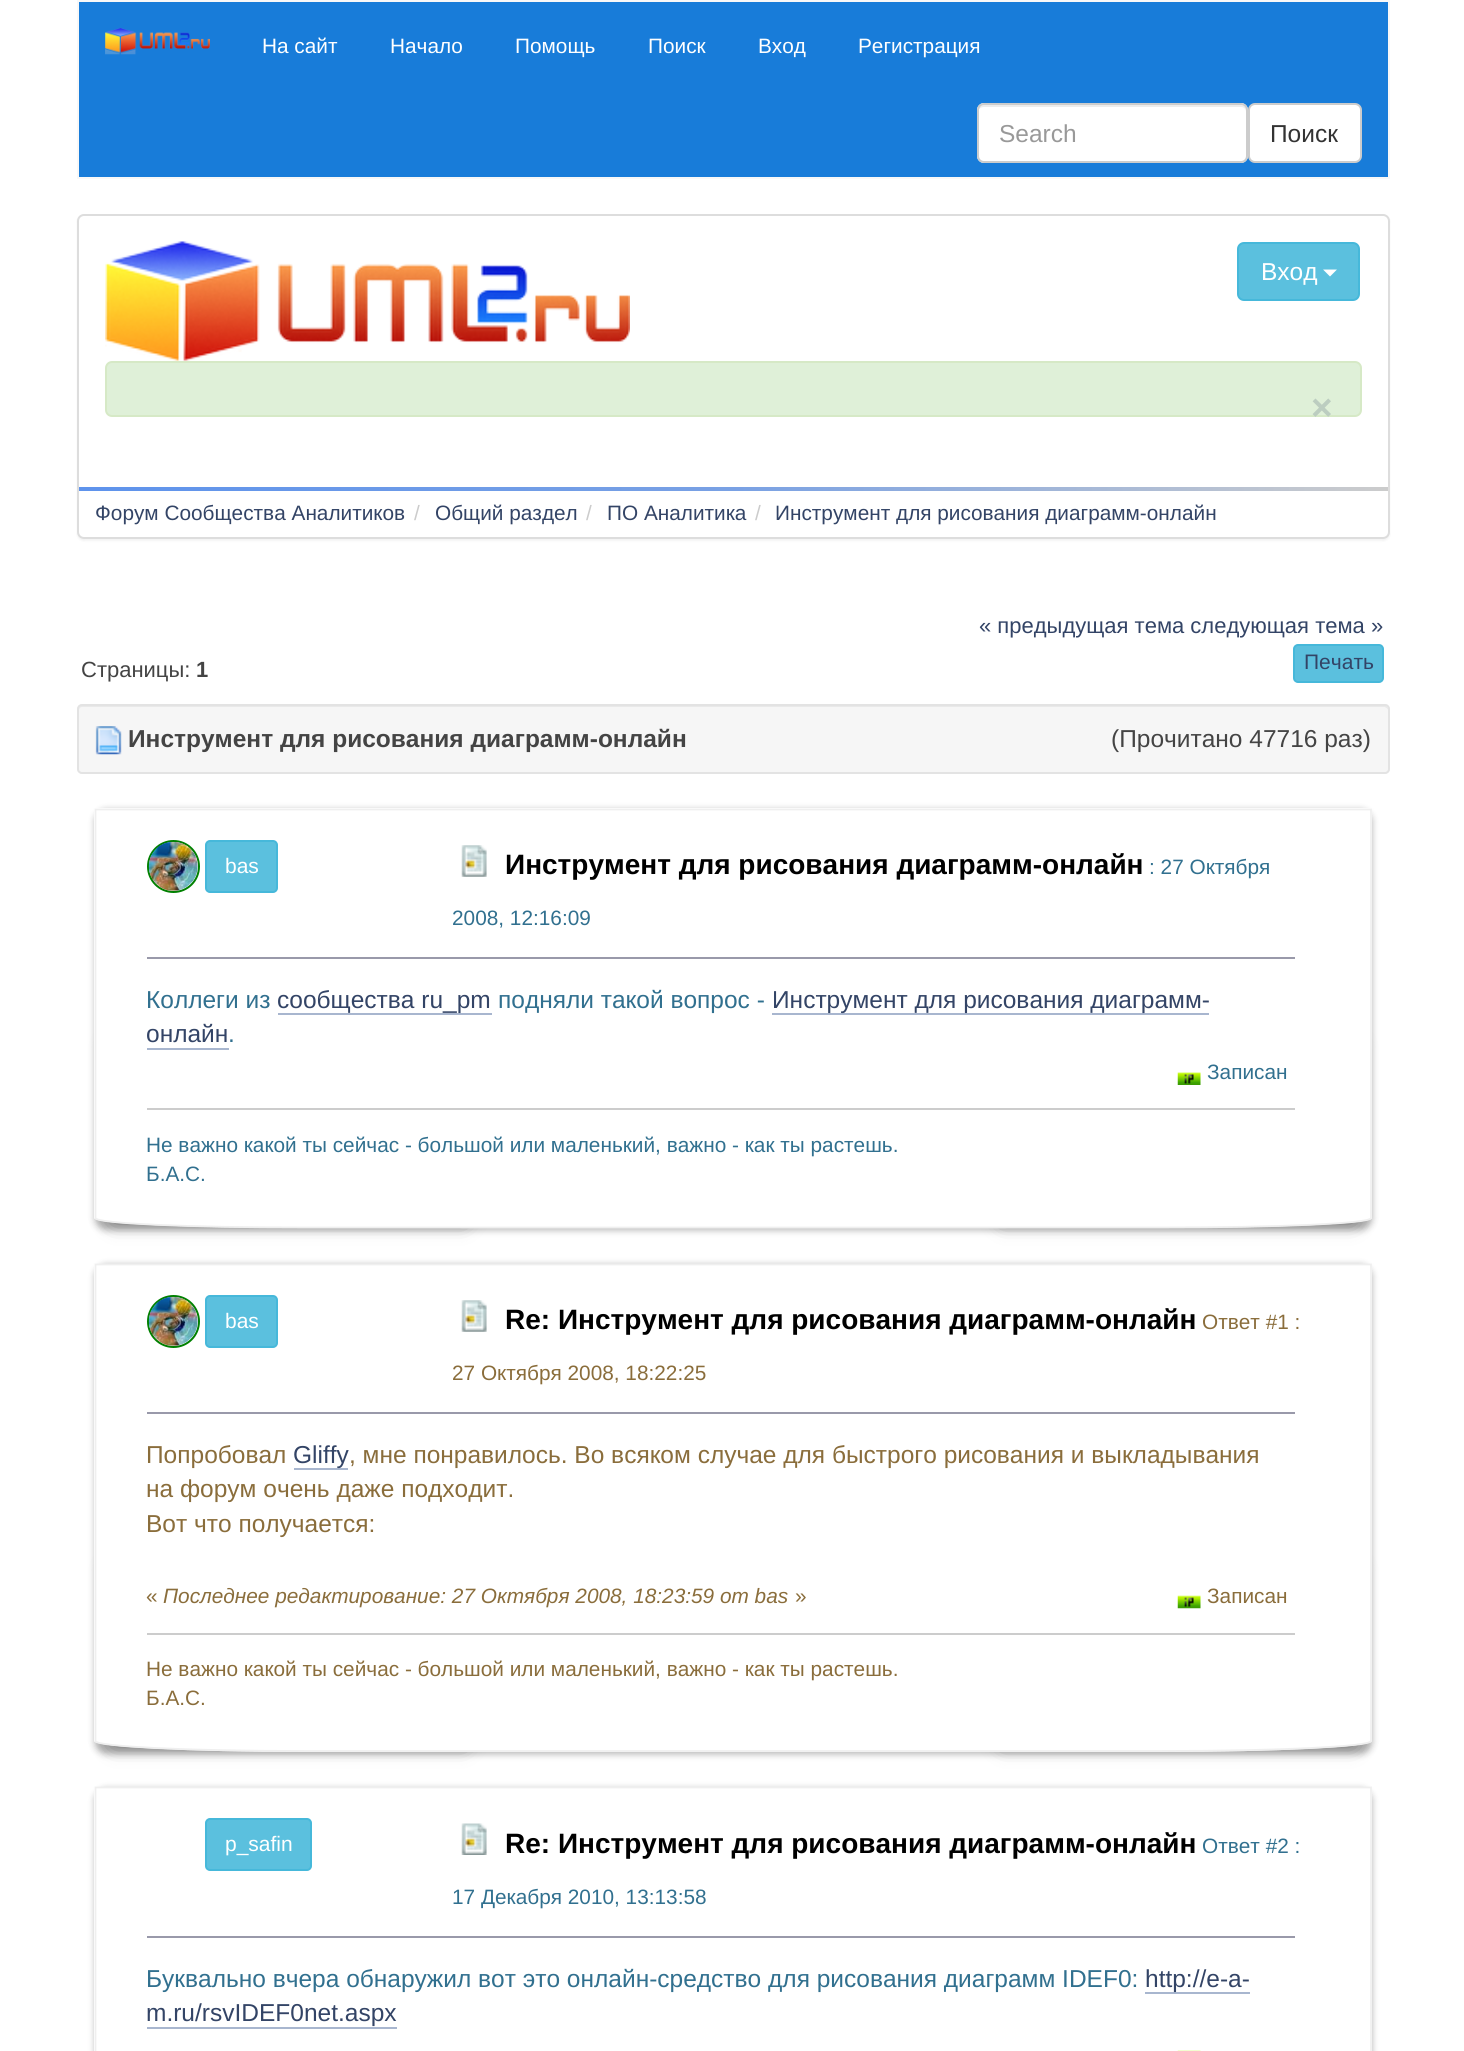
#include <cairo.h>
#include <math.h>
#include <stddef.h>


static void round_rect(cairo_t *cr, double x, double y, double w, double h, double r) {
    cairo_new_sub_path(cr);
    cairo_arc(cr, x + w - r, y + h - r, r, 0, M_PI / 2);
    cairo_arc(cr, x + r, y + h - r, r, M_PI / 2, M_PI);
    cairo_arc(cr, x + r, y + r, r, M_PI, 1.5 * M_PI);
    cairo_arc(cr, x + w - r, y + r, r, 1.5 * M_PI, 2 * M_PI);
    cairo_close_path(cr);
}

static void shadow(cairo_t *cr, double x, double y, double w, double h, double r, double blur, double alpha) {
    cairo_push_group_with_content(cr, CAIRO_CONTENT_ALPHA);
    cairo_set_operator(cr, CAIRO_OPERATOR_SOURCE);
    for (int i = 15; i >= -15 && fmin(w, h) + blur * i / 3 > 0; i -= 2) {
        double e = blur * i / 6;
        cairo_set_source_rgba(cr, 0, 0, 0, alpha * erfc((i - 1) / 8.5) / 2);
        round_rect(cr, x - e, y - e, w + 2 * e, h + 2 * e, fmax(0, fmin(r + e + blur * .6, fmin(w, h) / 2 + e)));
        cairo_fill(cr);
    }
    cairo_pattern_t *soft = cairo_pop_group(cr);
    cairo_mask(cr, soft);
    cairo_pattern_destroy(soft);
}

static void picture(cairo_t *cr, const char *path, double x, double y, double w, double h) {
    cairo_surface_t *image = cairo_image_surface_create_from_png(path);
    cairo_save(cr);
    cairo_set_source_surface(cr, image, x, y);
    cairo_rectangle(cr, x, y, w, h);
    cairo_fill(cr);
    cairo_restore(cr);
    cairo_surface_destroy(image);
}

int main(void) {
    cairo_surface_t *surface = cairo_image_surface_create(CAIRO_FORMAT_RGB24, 1464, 2051);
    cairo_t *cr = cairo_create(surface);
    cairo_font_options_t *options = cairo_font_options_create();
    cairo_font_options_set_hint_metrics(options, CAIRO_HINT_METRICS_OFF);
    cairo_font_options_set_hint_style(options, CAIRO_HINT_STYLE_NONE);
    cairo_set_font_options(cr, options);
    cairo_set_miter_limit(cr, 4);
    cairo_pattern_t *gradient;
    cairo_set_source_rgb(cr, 1, 1, 1);
    cairo_paint(cr);
    cairo_set_source_rgb(cr, 0.094, 0.486, 0.851);
    cairo_rectangle(cr, 78, 1, 1311, 177);
    cairo_fill_preserve(cr);
    cairo_set_source_rgb(cr, 0.969, 0.969, 0.969);
    cairo_stroke(cr);
    picture(cr, "img1.png", 105, 28, 105, 27);
    cairo_select_font_face(cr, "Liberation Sans", CAIRO_FONT_SLANT_NORMAL, CAIRO_FONT_WEIGHT_NORMAL);
    cairo_set_font_size(cr, 20.8);
    cairo_set_source_rgb(cr, 1, 1, 1);
    cairo_move_to(cr, 262, 53);
    cairo_show_text(cr, "На сайт");
    cairo_move_to(cr, 390, 53);
    cairo_show_text(cr, "Начало");
    cairo_move_to(cr, 515, 53);
    cairo_show_text(cr, "Помощь");
    cairo_move_to(cr, 648, 53);
    cairo_show_text(cr, "Поиск");
    cairo_move_to(cr, 758, 53);
    cairo_show_text(cr, "Вход");
    cairo_move_to(cr, 858, 53);
    cairo_show_text(cr, "Регистрация");
    round_rect(cr, 977, 103, 271, 60, 7);
    cairo_fill(cr);
    cairo_set_source_rgb(cr, 0.925, 0.925, 0.925);
    cairo_new_path(cr);
    cairo_move_to(cr, 984, 107);
    cairo_line_to(cr, 1241, 107);
    cairo_curve_to(cr, 1244, 107, 1246, 109, 1246, 112);
    cairo_line_to(cr, 1246, 110);
    cairo_curve_to(cr, 1246, 107, 1244, 105, 1241, 105);
    cairo_line_to(cr, 983, 105);
    cairo_curve_to(cr, 980, 105, 978, 107, 978, 110);
    cairo_line_to(cr, 978, 112);
    cairo_curve_to(cr, 978, 109, 981, 107, 984, 107);
    cairo_close_path(cr);
    cairo_fill(cr);
    round_rect(cr, 978, 104, 269, 58, 6);
    cairo_set_source_rgb(cr, 0.8, 0.8, 0.8);
    cairo_stroke(cr);
    cairo_set_font_size(cr, 24.5);
    cairo_set_source_rgb(cr, 0.6, 0.6, 0.6);
    cairo_move_to(cr, 999, 142);
    cairo_show_text(cr, "Search");
    cairo_set_source_rgb(cr, 1, 1, 1);
    round_rect(cr, 1249, 104, 112, 58, 6);
    cairo_fill_preserve(cr);
    cairo_set_source_rgb(cr, 0.8, 0.8, 0.8);
    cairo_stroke(cr);
    cairo_set_source_rgb(cr, 0.2, 0.2, 0.2);
    cairo_move_to(cr, 1270, 142);
    cairo_show_text(cr, "Поиск");
    cairo_set_source_rgb(cr, 0, 0, 0);
    shadow(cr, 77, 215, 1313, 326, 7, 1, 0.05);
    cairo_set_source_rgb(cr, 1, 1, 1);
    round_rect(cr, 78, 215, 1311, 323, 6);
    cairo_fill_preserve(cr);
    cairo_set_source_rgb(cr, 0.867, 0.867, 0.867);
    cairo_stroke(cr);
    picture(cr, "img2.png", 105, 241, 525, 120);
    cairo_set_source_rgb(cr, 0.357, 0.753, 0.871);
    round_rect(cr, 1238, 243, 121, 57, 6);
    cairo_fill_preserve(cr);
    cairo_set_source_rgb(cr, 0.275, 0.722, 0.855);
    cairo_stroke(cr);
    cairo_set_source_rgb(cr, 1, 1, 1);
    cairo_move_to(cr, 1261, 280);
    cairo_show_text(cr, "Вход");
    cairo_new_path(cr);
    cairo_move_to(cr, 1323, 269.5);
    cairo_line_to(cr, 1337, 269.5);
    cairo_line_to(cr, 1330, 276.5);
    cairo_close_path(cr);
    cairo_fill(cr);
    cairo_set_source_rgb(cr, 0.875, 0.941, 0.847);
    round_rect(cr, 106, 362, 1255, 54, 6);
    cairo_fill_preserve(cr);
    cairo_set_source_rgb(cr, 0.839, 0.914, 0.776);
    cairo_stroke(cr);
    cairo_select_font_face(cr, "Liberation Sans", CAIRO_FONT_SLANT_NORMAL, CAIRO_FONT_WEIGHT_BOLD);
    cairo_set_font_size(cr, 37);
    cairo_set_source_rgb(cr, 0.737, 0.804, 0.753);
    cairo_move_to(cr, 1311, 420);
    cairo_show_text(cr, "×");
    gradient = cairo_pattern_create_linear(79, 488, 1388, 488);
    cairo_pattern_add_color_stop_rgba(gradient, 0, 0.369, 0.576, 0.925, 1);
    cairo_pattern_add_color_stop_rgba(gradient, 0.5, 0.475, 0.631, 0.894, 1);
    cairo_pattern_add_color_stop_rgba(gradient, 1, 0.8, 0.8, 0.8, 1);
    cairo_set_source(cr, gradient);
    cairo_pattern_destroy(gradient);
    cairo_rectangle(cr, 79, 487, 1309, 4);
    cairo_fill(cr);
    cairo_select_font_face(cr, "Liberation Sans", CAIRO_FONT_SLANT_NORMAL, CAIRO_FONT_WEIGHT_NORMAL);
    cairo_set_font_size(cr, 20.8);
    cairo_set_source_rgb(cr, 0.2, 0.267, 0.4);
    cairo_move_to(cr, 95, 520);
    cairo_show_text(cr, "Форум Сообщества Аналитиков");
    cairo_set_source_rgb(cr, 0.8, 0.8, 0.8);
    cairo_move_to(cr, 414, 520);
    cairo_show_text(cr, "/");
    cairo_set_source_rgb(cr, 0.2, 0.267, 0.4);
    cairo_move_to(cr, 435, 520);
    cairo_show_text(cr, "Общий раздел");
    cairo_set_source_rgb(cr, 0.8, 0.8, 0.8);
    cairo_move_to(cr, 586, 520);
    cairo_show_text(cr, "/");
    cairo_set_source_rgb(cr, 0.2, 0.267, 0.4);
    cairo_move_to(cr, 607, 520);
    cairo_show_text(cr, "ПО Аналитика");
    cairo_set_source_rgb(cr, 0.8, 0.8, 0.8);
    cairo_move_to(cr, 755, 520);
    cairo_show_text(cr, "/");
    cairo_set_source_rgb(cr, 0.2, 0.267, 0.4);
    cairo_move_to(cr, 775, 520);
    cairo_show_text(cr, "Инструмент для рисования диаграмм-онлайн");
    cairo_set_font_size(cr, 22);
    cairo_move_to(cr, 979, 633);
    cairo_show_text(cr, "« предыдущая тема следующая тема »");
    cairo_set_source_rgb(cr, 0.267, 0.267, 0.267);
    cairo_move_to(cr, 81, 677);
    cairo_show_text(cr, "Страницы:");
    cairo_select_font_face(cr, "Liberation Sans", CAIRO_FONT_SLANT_NORMAL, CAIRO_FONT_WEIGHT_BOLD);
    cairo_move_to(cr, 196, 677);
    cairo_show_text(cr, "1");
    cairo_set_source_rgb(cr, 0.357, 0.753, 0.871);
    round_rect(cr, 1294, 645, 89, 37, 4);
    cairo_fill_preserve(cr);
    cairo_set_source_rgb(cr, 0.275, 0.722, 0.855);
    cairo_stroke(cr);
    cairo_select_font_face(cr, "Liberation Sans", CAIRO_FONT_SLANT_NORMAL, CAIRO_FONT_WEIGHT_NORMAL);
    cairo_set_font_size(cr, 21);
    cairo_set_source_rgb(cr, 0.2, 0.267, 0.4);
    cairo_move_to(cr, 1304, 669);
    cairo_show_text(cr, "Печать");
    cairo_set_source_rgb(cr, 0.961, 0.961, 0.961);
    round_rect(cr, 77, 704, 1313, 70, 5);
    cairo_fill(cr);
    cairo_set_source_rgb(cr, 0.914, 0.914, 0.914);
    cairo_new_path(cr);
    cairo_move_to(cr, 82, 707);
    cairo_line_to(cr, 1384, 707);
    cairo_curve_to(cr, 1386, 707, 1388, 709, 1388, 710);
    cairo_line_to(cr, 1388, 709);
    cairo_curve_to(cr, 1388, 707, 1386, 705, 1384, 705);
    cairo_line_to(cr, 83, 705);
    cairo_curve_to(cr, 81, 705, 79, 707, 79, 709);
    cairo_line_to(cr, 79, 710);
    cairo_curve_to(cr, 79, 709, 80, 707, 82, 707);
    cairo_close_path(cr);
    cairo_fill(cr);
    round_rect(cr, 78, 705, 1311, 68, 4);
    cairo_set_source_rgb(cr, 0.89, 0.89, 0.89);
    cairo_stroke(cr);
    picture(cr, "img3.png", 95, 726, 27, 29);
    cairo_select_font_face(cr, "Liberation Sans", CAIRO_FONT_SLANT_NORMAL, CAIRO_FONT_WEIGHT_BOLD);
    cairo_set_font_size(cr, 24.5);
    cairo_set_source_rgb(cr, 0.267, 0.267, 0.267);
    cairo_move_to(cr, 128, 747);
    cairo_show_text(cr, "Инструмент для рисования диаграмм-онлайн");
    cairo_select_font_face(cr, "Liberation Sans", CAIRO_FONT_SLANT_NORMAL, CAIRO_FONT_WEIGHT_NORMAL);
    cairo_move_to(cr, 1111, 747);
    cairo_show_text(cr, "(Прочитано 47716 раз)");
    cairo_set_source_rgb(cr, 0, 0, 0);
    shadow(cr, 95, 810, 1277, 420, 11, 3.5, 0.3);
    shadow(cr, 114, 1045, 350, 175, 0, 10.5, 0.5);
    shadow(cr, 1003, 1045, 350, 175, 0, 10.5, 0.5);
    cairo_set_source_rgb(cr, 1, 1, 1);
    cairo_new_path(cr);
    cairo_move_to(cr, 94, 808);
    cairo_line_to(cr, 1372, 808);
    cairo_line_to(cr, 1372, 1218);
    cairo_curve_to(cr, 1372, 1224, 1278, 1228, 1162, 1228);
    cairo_line_to(cr, 304, 1228);
    cairo_curve_to(cr, 189, 1228, 94, 1224, 94, 1218);
    cairo_close_path(cr);
    cairo_fill(cr);
    cairo_new_path(cr);
    cairo_move_to(cr, 95.5, 809.5);
    cairo_line_to(cr, 1371, 809.5);
    cairo_line_to(cr, 1371, 1218);
    cairo_curve_to(cr, 1371, 1223.5, 1277.5, 1227.5, 1162, 1227.5);
    cairo_line_to(cr, 304.5, 1227.5);
    cairo_curve_to(cr, 189, 1227.5, 95.5, 1223.5, 95.5, 1218);
    cairo_close_path(cr);
    cairo_set_source_rgb(cr, 0.937, 0.937, 0.937);
    cairo_set_line_width(cr, 1.8);
    cairo_stroke(cr);
    cairo_arc(cr, 173.5, 866.5, 25.5, 0, 2 * M_PI);
    cairo_set_source_rgb(cr, 0, 0.502, 0);
    cairo_set_line_width(cr, 2);
    cairo_stroke(cr);
    picture(cr, "img4.png", 148, 841, 50, 50);
    cairo_set_source_rgb(cr, 0.357, 0.753, 0.871);
    round_rect(cr, 206, 841, 71, 51, 4);
    cairo_fill_preserve(cr);
    cairo_set_source_rgb(cr, 0.275, 0.722, 0.855);
    cairo_stroke(cr);
    cairo_set_font_size(cr, 21);
    cairo_set_source_rgb(cr, 1, 1, 1);
    cairo_move_to(cr, 225, 873);
    cairo_show_text(cr, "bas");
    picture(cr, "img5.png", 461, 845, 26, 32);
    cairo_select_font_face(cr, "Liberation Sans", CAIRO_FONT_SLANT_NORMAL, CAIRO_FONT_WEIGHT_BOLD);
    cairo_set_font_size(cr, 28);
    cairo_set_source_rgb(cr, 0, 0, 0);
    cairo_move_to(cr, 505, 874);
    cairo_show_text(cr, "Инструмент для рисования диаграмм-онлайн");
    cairo_select_font_face(cr, "Liberation Sans", CAIRO_FONT_SLANT_NORMAL, CAIRO_FONT_WEIGHT_NORMAL);
    cairo_set_font_size(cr, 20.8);
    cairo_set_source_rgb(cr, 0.192, 0.439, 0.561);
    cairo_move_to(cr, 1149, 874);
    cairo_show_text(cr, ": 27 Октября");
    cairo_move_to(cr, 452, 925);
    cairo_show_text(cr, "2008, 12:16:09");
    cairo_set_source_rgb(cr, 0.6, 0.6, 0.667);
    cairo_rectangle(cr, 147, 957, 1148, 2);
    cairo_fill(cr);
    cairo_set_font_size(cr, 24.5);
    cairo_set_source_rgb(cr, 0.192, 0.439, 0.561);
    cairo_move_to(cr, 146, 1008);
    cairo_show_text(cr, "Коллеги из");
    cairo_set_source_rgb(cr, 0.659, 0.714, 0.812);
    cairo_rectangle(cr, 278, 1013, 214, 2);
    cairo_fill(cr);
    cairo_set_source_rgb(cr, 0.2, 0.267, 0.4);
    cairo_move_to(cr, 277, 1008);
    cairo_show_text(cr, "сообщества ru_pm");
    cairo_set_source_rgb(cr, 0.192, 0.439, 0.561);
    cairo_move_to(cr, 498, 1008);
    cairo_show_text(cr, "подняли такой вопрос -");
    cairo_set_source_rgb(cr, 0.659, 0.714, 0.812);
    cairo_rectangle(cr, 772, 1013, 437, 2);
    cairo_fill(cr);
    cairo_set_source_rgb(cr, 0.2, 0.267, 0.4);
    cairo_move_to(cr, 772, 1008);
    cairo_show_text(cr, "Инструмент для рисования диаграмм-");
    cairo_move_to(cr, 146, 1042);
    cairo_show_text(cr, "онлайн");
    cairo_set_source_rgb(cr, 0.659, 0.714, 0.812);
    cairo_rectangle(cr, 147, 1048, 82, 2);
    cairo_fill(cr);
    cairo_set_source_rgb(cr, 0.192, 0.439, 0.561);
    cairo_move_to(cr, 228, 1042);
    cairo_show_text(cr, ".");
    picture(cr, "img6.png", 1177, 1072, 24, 13);
    cairo_set_font_size(cr, 20.8);
    cairo_move_to(cr, 1207, 1079);
    cairo_show_text(cr, "Записан");
    cairo_set_source_rgb(cr, 0.8, 0.8, 0.8);
    cairo_rectangle(cr, 147, 1108, 1148, 2);
    cairo_fill(cr);
    cairo_set_source_rgb(cr, 0.192, 0.439, 0.561);
    cairo_move_to(cr, 146, 1152);
    cairo_show_text(cr, "Не важно какой ты сейчас - большой или маленький, важно - как ты растешь.");
    cairo_move_to(cr, 146, 1181);
    cairo_show_text(cr, "Б.А.С.");
    cairo_set_source_rgb(cr, 0, 0, 0);
    shadow(cr, 95, 1265, 1277, 489, 11, 3.5, 0.3);
    shadow(cr, 114, 1568, 350, 175, 0, 10.5, 0.5);
    shadow(cr, 1003, 1568, 350, 175, 0, 10.5, 0.5);
    cairo_set_source_rgb(cr, 1, 1, 1);
    cairo_new_path(cr);
    cairo_move_to(cr, 94, 1264);
    cairo_line_to(cr, 1372, 1264);
    cairo_line_to(cr, 1372, 1741);
    cairo_curve_to(cr, 1372, 1747, 1278, 1752, 1162, 1752);
    cairo_line_to(cr, 304, 1752);
    cairo_curve_to(cr, 189, 1752, 94, 1747, 94, 1741);
    cairo_close_path(cr);
    cairo_fill(cr);
    cairo_new_path(cr);
    cairo_move_to(cr, 95.5, 1264.5);
    cairo_line_to(cr, 1371, 1264.5);
    cairo_line_to(cr, 1371, 1741);
    cairo_curve_to(cr, 1371, 1746.5, 1277.5, 1751, 1162, 1751);
    cairo_line_to(cr, 304.5, 1751);
    cairo_curve_to(cr, 189, 1751, 95.5, 1746.5, 95.5, 1741);
    cairo_close_path(cr);
    cairo_set_source_rgb(cr, 0.937, 0.937, 0.937);
    cairo_set_line_width(cr, 1.8);
    cairo_stroke(cr);
    cairo_arc(cr, 173.5, 1321.5, 25.5, 0, 2 * M_PI);
    cairo_set_source_rgb(cr, 0, 0.502, 0);
    cairo_set_line_width(cr, 2);
    cairo_stroke(cr);
    picture(cr, "img4.png", 148, 1296, 50, 50);
    cairo_set_source_rgb(cr, 0.357, 0.753, 0.871);
    round_rect(cr, 206, 1296, 71, 51, 4);
    cairo_fill_preserve(cr);
    cairo_set_source_rgb(cr, 0.275, 0.722, 0.855);
    cairo_stroke(cr);
    cairo_set_font_size(cr, 21);
    cairo_set_source_rgb(cr, 1, 1, 1);
    cairo_move_to(cr, 225, 1328);
    cairo_show_text(cr, "bas");
    picture(cr, "img5.png", 461, 1300, 26, 32);
    cairo_select_font_face(cr, "Liberation Sans", CAIRO_FONT_SLANT_NORMAL, CAIRO_FONT_WEIGHT_BOLD);
    cairo_set_font_size(cr, 28);
    cairo_set_source_rgb(cr, 0, 0, 0);
    cairo_move_to(cr, 505, 1329);
    cairo_show_text(cr, "Re: Инструмент для рисования диаграмм-онлайн");
    cairo_select_font_face(cr, "Liberation Sans", CAIRO_FONT_SLANT_NORMAL, CAIRO_FONT_WEIGHT_NORMAL);
    cairo_set_font_size(cr, 20.8);
    cairo_set_source_rgb(cr, 0.541, 0.427, 0.231);
    cairo_move_to(cr, 1202, 1329);
    cairo_show_text(cr, "Ответ #1 :");
    cairo_move_to(cr, 452, 1380);
    cairo_show_text(cr, "27 Октября 2008, 18:22:25");
    cairo_set_source_rgb(cr, 0.6, 0.6, 0.667);
    cairo_rectangle(cr, 147, 1412, 1148, 2);
    cairo_fill(cr);
    cairo_set_font_size(cr, 24.5);
    cairo_set_source_rgb(cr, 0.541, 0.427, 0.231);
    cairo_move_to(cr, 146, 1463);
    cairo_show_text(cr, "Попробовал");
    cairo_set_source_rgb(cr, 0.659, 0.714, 0.812);
    cairo_rectangle(cr, 294, 1468, 54, 2);
    cairo_fill(cr);
    cairo_set_source_rgb(cr, 0.2, 0.267, 0.4);
    cairo_move_to(cr, 293, 1463);
    cairo_show_text(cr, "Gliffy");
    cairo_set_source_rgb(cr, 0.541, 0.427, 0.231);
    cairo_move_to(cr, 349, 1463);
    cairo_show_text(cr, ", мне понравилось. Во всяком случае для быстрого рисования и выкладывания");
    cairo_move_to(cr, 146, 1497);
    cairo_show_text(cr, "на форум очень даже подходит.");
    cairo_move_to(cr, 146, 1532);
    cairo_show_text(cr, "Вот что получается:");
    cairo_set_font_size(cr, 20.8);
    cairo_move_to(cr, 146, 1603);
    cairo_show_text(cr, "«");
    cairo_select_font_face(cr, "Liberation Sans", CAIRO_FONT_SLANT_ITALIC, CAIRO_FONT_WEIGHT_NORMAL);
    cairo_move_to(cr, 163, 1603);
    cairo_show_text(cr, "Последнее редактирование: 27 Октября 2008, 18:23:59 от bas");
    cairo_select_font_face(cr, "Liberation Sans", CAIRO_FONT_SLANT_NORMAL, CAIRO_FONT_WEIGHT_NORMAL);
    cairo_move_to(cr, 795, 1603);
    cairo_show_text(cr, "»");
    picture(cr, "img7.png", 1177, 1595, 24, 14);
    cairo_move_to(cr, 1207, 1603);
    cairo_show_text(cr, "Записан");
    cairo_set_source_rgb(cr, 0.8, 0.8, 0.8);
    cairo_rectangle(cr, 147, 1633, 1148, 2);
    cairo_fill(cr);
    cairo_set_source_rgb(cr, 0.541, 0.427, 0.231);
    cairo_move_to(cr, 146, 1676);
    cairo_show_text(cr, "Не важно какой ты сейчас - большой или маленький, важно - как ты растешь.");
    cairo_move_to(cr, 146, 1705);
    cairo_show_text(cr, "Б.А.С.");
    cairo_set_source_rgb(cr, 0, 0, 0);
    shadow(cr, 95, 1789, 1277, 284, 11, 3.5, 0.3);
    cairo_set_source_rgb(cr, 1, 1, 1);
    cairo_new_path(cr);
    cairo_move_to(cr, 94, 1787);
    cairo_line_to(cr, 1372, 1787);
    cairo_line_to(cr, 1372, 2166);
    cairo_curve_to(cr, 1372, 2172, 1278, 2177, 1162, 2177);
    cairo_line_to(cr, 304, 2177);
    cairo_curve_to(cr, 189, 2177, 94, 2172, 94, 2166);
    cairo_close_path(cr);
    cairo_fill(cr);
    cairo_new_path(cr);
    cairo_move_to(cr, 95.5, 1787.5);
    cairo_line_to(cr, 1371, 1787.5);
    cairo_line_to(cr, 1371, 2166.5);
    cairo_curve_to(cr, 1371, 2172, 1277.5, 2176, 1162, 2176);
    cairo_line_to(cr, 304.5, 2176);
    cairo_curve_to(cr, 189, 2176, 95.5, 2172, 95.5, 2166.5);
    cairo_close_path(cr);
    cairo_set_source_rgb(cr, 0.937, 0.937, 0.937);
    cairo_set_line_width(cr, 1.8);
    cairo_stroke(cr);
    cairo_set_source_rgb(cr, 0.357, 0.753, 0.871);
    round_rect(cr, 206, 1819, 105, 51, 4);
    cairo_fill_preserve(cr);
    cairo_set_source_rgb(cr, 0.275, 0.722, 0.855);
    cairo_set_line_width(cr, 2);
    cairo_stroke(cr);
    cairo_set_font_size(cr, 21);
    cairo_set_source_rgb(cr, 1, 1, 1);
    cairo_move_to(cr, 225, 1851);
    cairo_show_text(cr, "p_safin");
    picture(cr, "img8.png", 461, 1823, 26, 32);
    cairo_select_font_face(cr, "Liberation Sans", CAIRO_FONT_SLANT_NORMAL, CAIRO_FONT_WEIGHT_BOLD);
    cairo_set_font_size(cr, 28);
    cairo_set_source_rgb(cr, 0, 0, 0);
    cairo_move_to(cr, 505, 1853);
    cairo_show_text(cr, "Re: Инструмент для рисования диаграмм-онлайн");
    cairo_select_font_face(cr, "Liberation Sans", CAIRO_FONT_SLANT_NORMAL, CAIRO_FONT_WEIGHT_NORMAL);
    cairo_set_font_size(cr, 20.8);
    cairo_set_source_rgb(cr, 0.192, 0.439, 0.561);
    cairo_move_to(cr, 1202, 1853);
    cairo_show_text(cr, "Ответ #2 :");
    cairo_move_to(cr, 452, 1904);
    cairo_show_text(cr, "17 Декабря 2010, 13:13:58");
    cairo_set_source_rgb(cr, 0.6, 0.6, 0.667);
    cairo_rectangle(cr, 147, 1936, 1148, 2);
    cairo_fill(cr);
    cairo_set_font_size(cr, 24.5);
    cairo_set_source_rgb(cr, 0.192, 0.439, 0.561);
    cairo_move_to(cr, 146, 1987);
    cairo_show_text(cr, "Буквально вчера обнаружил вот это онлайн-средство для рисования диаграмм IDEF0:");
    cairo_set_source_rgb(cr, 0.659, 0.714, 0.812);
    cairo_rectangle(cr, 1145, 1992, 105, 2);
    cairo_fill(cr);
    cairo_set_source_rgb(cr, 0.2, 0.267, 0.4);
    cairo_move_to(cr, 1145, 1987);
    cairo_show_text(cr, "http://e-a-");
    cairo_move_to(cr, 146, 2021);
    cairo_show_text(cr, "m.ru/rsvIDEF0net.aspx");
    cairo_set_source_rgb(cr, 0.659, 0.714, 0.812);
    cairo_rectangle(cr, 147, 2027, 250, 2);
    cairo_fill(cr);
    picture(cr, "img9.png", 1177, 2050, 24, 1);
    cairo_surface_write_to_png(surface, "page.png");
    cairo_font_options_destroy(options);
    cairo_destroy(cr);
    cairo_surface_destroy(surface);
    return 0;
}
